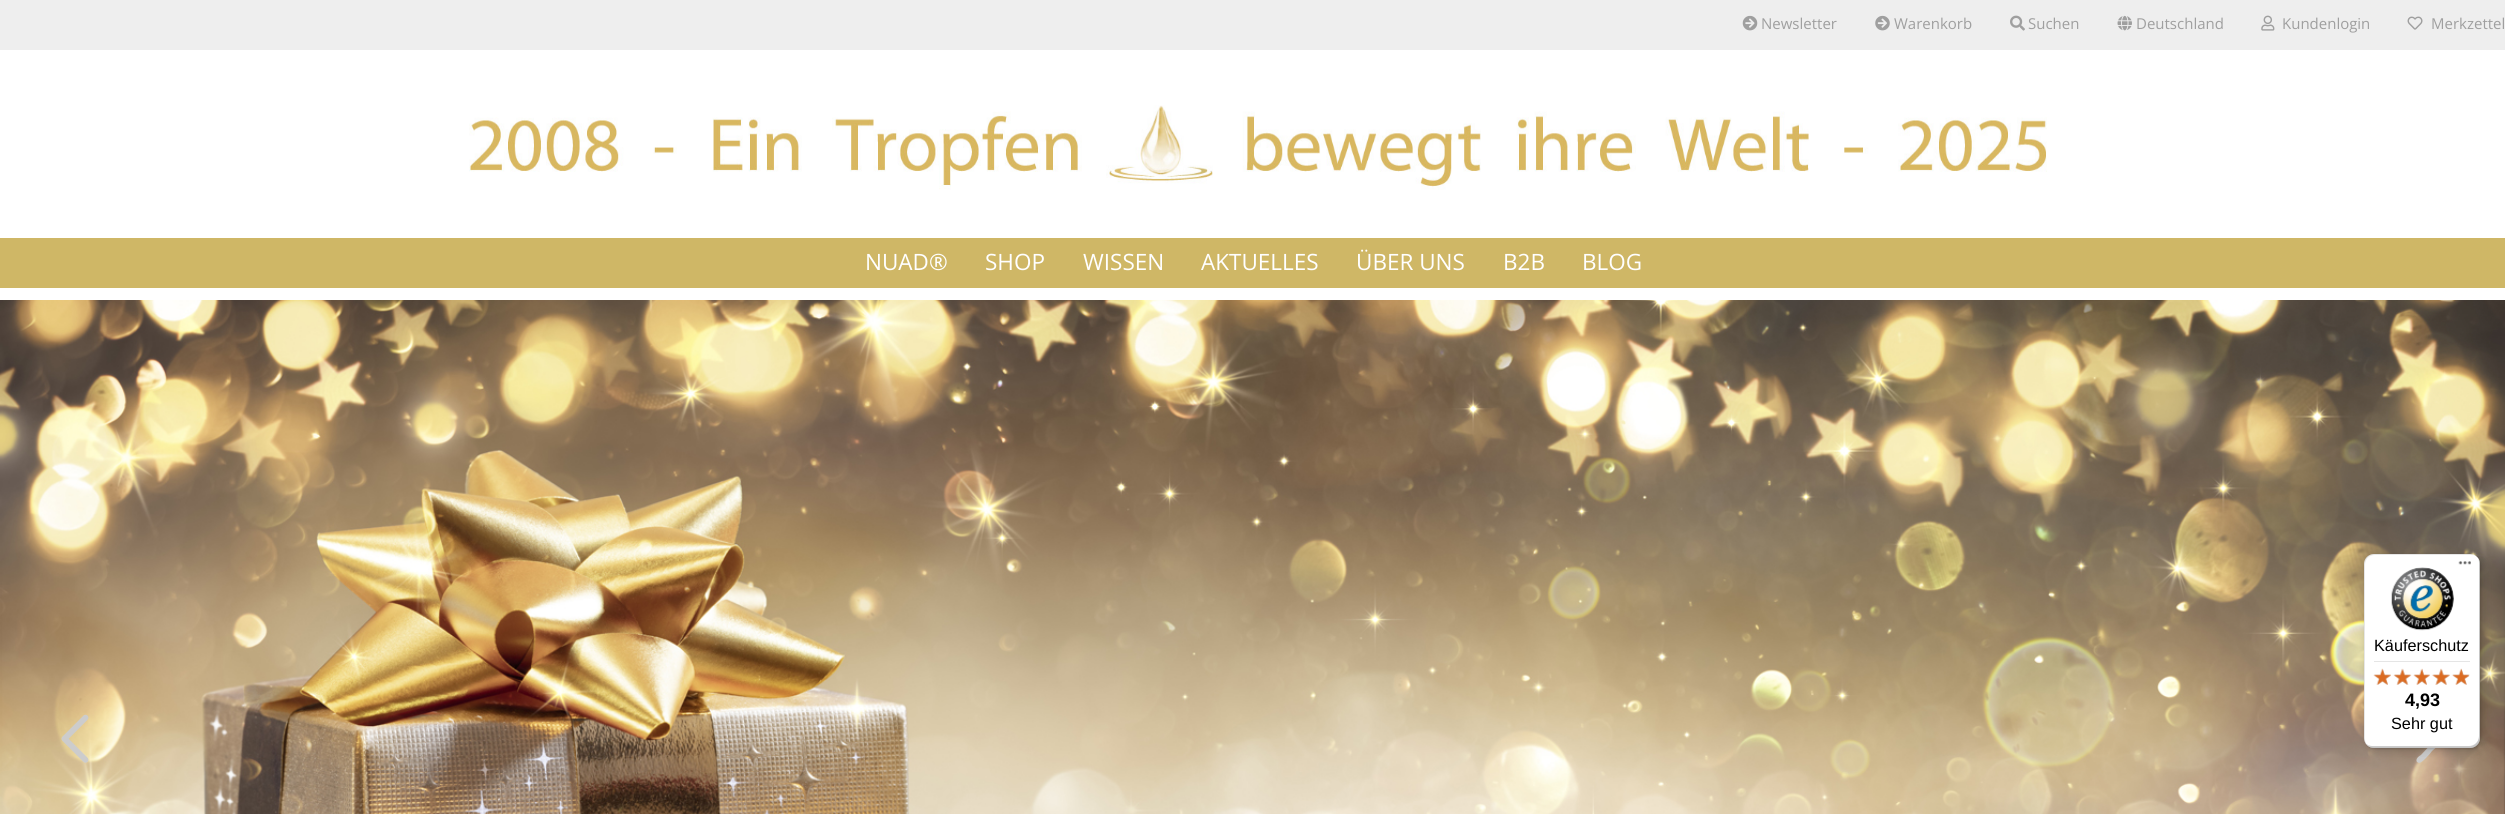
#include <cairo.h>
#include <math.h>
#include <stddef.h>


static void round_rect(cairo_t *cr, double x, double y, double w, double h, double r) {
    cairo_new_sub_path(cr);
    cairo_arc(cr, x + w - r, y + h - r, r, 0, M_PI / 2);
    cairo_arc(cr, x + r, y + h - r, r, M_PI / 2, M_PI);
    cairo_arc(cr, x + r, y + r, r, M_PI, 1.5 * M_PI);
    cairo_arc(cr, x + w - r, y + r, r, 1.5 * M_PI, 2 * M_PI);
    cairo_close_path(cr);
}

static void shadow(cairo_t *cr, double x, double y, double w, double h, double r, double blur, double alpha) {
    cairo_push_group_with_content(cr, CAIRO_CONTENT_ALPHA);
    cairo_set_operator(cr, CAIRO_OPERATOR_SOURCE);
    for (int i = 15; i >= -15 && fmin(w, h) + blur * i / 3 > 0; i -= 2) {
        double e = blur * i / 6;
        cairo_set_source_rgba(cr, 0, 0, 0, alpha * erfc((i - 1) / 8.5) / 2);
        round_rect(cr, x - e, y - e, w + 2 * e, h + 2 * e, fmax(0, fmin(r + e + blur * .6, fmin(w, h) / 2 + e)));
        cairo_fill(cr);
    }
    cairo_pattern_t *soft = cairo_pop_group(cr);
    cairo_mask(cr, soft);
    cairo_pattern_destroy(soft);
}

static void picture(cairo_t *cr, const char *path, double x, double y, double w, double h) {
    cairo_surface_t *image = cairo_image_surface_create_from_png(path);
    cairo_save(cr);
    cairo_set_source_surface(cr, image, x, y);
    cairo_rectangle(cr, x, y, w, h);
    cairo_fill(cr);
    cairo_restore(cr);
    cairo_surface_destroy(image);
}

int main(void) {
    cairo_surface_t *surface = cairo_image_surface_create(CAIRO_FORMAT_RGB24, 2505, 814);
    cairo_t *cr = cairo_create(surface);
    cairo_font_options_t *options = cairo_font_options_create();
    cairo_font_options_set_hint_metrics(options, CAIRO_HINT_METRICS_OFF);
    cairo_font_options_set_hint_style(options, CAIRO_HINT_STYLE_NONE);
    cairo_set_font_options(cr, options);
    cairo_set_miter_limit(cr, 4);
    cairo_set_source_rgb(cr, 1, 1, 1);
    cairo_paint(cr);
    cairo_set_source_rgb(cr, 0.933, 0.933, 0.933);
    cairo_rectangle(cr, 0, 0, 2505, 50);
    cairo_fill(cr);
    picture(cr, "img1.png", 1742, 15, 16, 16);
    cairo_select_font_face(cr, "Open Sans", CAIRO_FONT_SLANT_NORMAL, CAIRO_FONT_WEIGHT_NORMAL);
    cairo_set_font_size(cr, 15);
    cairo_set_source_rgb(cr, 0.624, 0.624, 0.624);
    cairo_move_to(cr, 1761, 29);
    cairo_show_text(cr, "Newsletter");
    picture(cr, "img2.png", 1875, 15, 15, 16);
    cairo_move_to(cr, 1894, 29);
    cairo_show_text(cr, "Warenkorb");
    picture(cr, "img3.png", 2010, 15, 15, 16);
    cairo_move_to(cr, 2028, 29);
    cairo_show_text(cr, "Suchen");
    picture(cr, "img4.png", 2117, 15, 15, 16);
    cairo_move_to(cr, 2136, 29);
    cairo_show_text(cr, "Deutschland");
    picture(cr, "img5.png", 2261, 15, 14, 16);
    cairo_move_to(cr, 2282, 29);
    cairo_show_text(cr, "Kundenlogin");
    picture(cr, "img6.png", 2407, 16, 16, 14);
    cairo_move_to(cr, 2431, 29);
    cairo_show_text(cr, "Merkzettel");
    picture(cr, "img7.png", 469, 105, 1578, 85);
    cairo_set_source_rgb(cr, 0.812, 0.718, 0.4);
    cairo_rectangle(cr, 0, 238, 2505, 50);
    cairo_fill(cr);
    cairo_set_font_size(cr, 22.5);
    cairo_set_source_rgb(cr, 1, 1, 1);
    cairo_move_to(cr, 865, 270);
    cairo_show_text(cr, "NUAD®");
    cairo_move_to(cr, 985, 270);
    cairo_show_text(cr, "SHOP");
    cairo_move_to(cr, 1083, 270);
    cairo_show_text(cr, "WISSEN");
    cairo_move_to(cr, 1201, 270);
    cairo_show_text(cr, "AKTUELLES");
    cairo_move_to(cr, 1356, 270);
    cairo_show_text(cr, "ÜBER UNS");
    cairo_move_to(cr, 1503, 270);
    cairo_show_text(cr, "B2B");
    cairo_move_to(cr, 1582, 270);
    cairo_show_text(cr, "BLOG");
    picture(cr, "img8.png", 0, 300, 2505, 514);
    picture(cr, "img9.png", 61, 714, 28, 49);
    cairo_set_source_rgb(cr, 0.8, 0.8, 0.8);
    cairo_new_path(cr);
    cairo_move_to(cr, 2419, 763);
    cairo_line_to(cr, 2417, 762);
    cairo_curve_to(cr, 2415, 759, 2419, 756, 2421, 755);
    cairo_line_to(cr, 2436, 739);
    cairo_line_to(cr, 2417, 718);
    cairo_curve_to(cr, 2416, 716, 2419, 714, 2421, 715);
    cairo_line_to(cr, 2436, 730);
    cairo_curve_to(cr, 2448, 742, 2446, 738, 2432, 751);
    cairo_curve_to(cr, 2430, 754, 2422, 763, 2419, 763);
    cairo_close_path(cr);
    cairo_fill(cr);
    cairo_set_source_rgb(cr, 0, 0, 0);
    shadow(cr, 2368, 558, 116, 193, 10, 5, 0.15);
    shadow(cr, 2365, 555, 116, 194, 10, 1, 0.15);
    cairo_set_source_rgb(cr, 1, 1, 1);
    round_rect(cr, 2364, 554, 116, 194, 10);
    cairo_fill(cr);
    cairo_set_source_rgba(cr, 0, 0, 0, 0.1);
    cairo_new_path(cr);
    cairo_move_to(cr, 2375, 555);
    cairo_line_to(cr, 2471, 555);
    cairo_curve_to(cr, 2473, 555, 2475, 555, 2476, 556);
    cairo_curve_to(cr, 2475, 555, 2472, 554, 2470, 554);
    cairo_line_to(cr, 2374, 554);
    cairo_curve_to(cr, 2368, 554, 2364, 558, 2364, 564);
    cairo_line_to(cr, 2364, 738);
    cairo_curve_to(cr, 2364, 741, 2365, 744, 2368, 746);
    cairo_curve_to(cr, 2366, 744, 2365, 741, 2365, 739);
    cairo_line_to(cr, 2365, 565);
    cairo_curve_to(cr, 2365, 559, 2369, 555, 2375, 555);
    cairo_close_path(cr);
    cairo_fill(cr);
    cairo_set_source_rgba(cr, 0, 0, 0, 0.2);
    cairo_new_path(cr);
    cairo_move_to(cr, 2366, 744);
    cairo_curve_to(cr, 2368, 746, 2371, 748, 2374, 748);
    cairo_line_to(cr, 2470, 748);
    cairo_curve_to(cr, 2476, 748, 2480, 744, 2480, 738);
    cairo_line_to(cr, 2480, 564);
    cairo_curve_to(cr, 2480, 562, 2479, 560, 2478, 558);
    cairo_curve_to(cr, 2479, 559, 2479, 561, 2479, 562);
    cairo_line_to(cr, 2479, 736);
    cairo_curve_to(cr, 2479, 742, 2474, 746, 2469, 746);
    cairo_line_to(cr, 2372, 746);
    cairo_curve_to(cr, 2370, 746, 2368, 745, 2366, 744);
    cairo_close_path(cr);
    cairo_fill(cr);
    cairo_set_source_rgba(cr, 0.196, 0.196, 0.196, 0.2);
    cairo_new_path(cr);
    cairo_move_to(cr, 2366, 745);
    cairo_curve_to(cr, 2368, 747, 2371, 748, 2374, 748);
    cairo_line_to(cr, 2470, 748);
    cairo_curve_to(cr, 2476, 748, 2480, 744, 2480, 738);
    cairo_line_to(cr, 2480, 564);
    cairo_curve_to(cr, 2480, 562, 2479, 559, 2478, 558);
    cairo_curve_to(cr, 2479, 559, 2479, 561, 2479, 563);
    cairo_line_to(cr, 2479, 737);
    cairo_curve_to(cr, 2479, 742, 2475, 747, 2469, 747);
    cairo_line_to(cr, 2373, 747);
    cairo_curve_to(cr, 2370, 747, 2368, 746, 2366, 745);
    cairo_close_path(cr);
    cairo_fill(cr);
    cairo_set_source_rgba(cr, 1, 1, 1, 0.3);
    cairo_new_path(cr);
    cairo_move_to(cr, 2365, 743);
    cairo_curve_to(cr, 2367, 746, 2370, 748, 2374, 748);
    cairo_line_to(cr, 2470, 748);
    cairo_curve_to(cr, 2476, 748, 2480, 744, 2480, 738);
    cairo_line_to(cr, 2480, 564);
    cairo_curve_to(cr, 2480, 561, 2479, 558, 2476, 556);
    cairo_curve_to(cr, 2478, 558, 2479, 561, 2479, 563);
    cairo_line_to(cr, 2479, 737);
    cairo_curve_to(cr, 2479, 742, 2475, 747, 2469, 747);
    cairo_line_to(cr, 2373, 747);
    cairo_curve_to(cr, 2370, 747, 2367, 745, 2365, 743);
    cairo_close_path(cr);
    cairo_fill(cr);
    picture(cr, "img10.png", 2458, 561, 13, 4);
    picture(cr, "img11.png", 2391, 567, 63, 64);
    cairo_select_font_face(cr, "Liberation Sans", CAIRO_FONT_SLANT_NORMAL, CAIRO_FONT_WEIGHT_NORMAL);
    cairo_set_font_size(cr, 16.25);
    cairo_set_source_rgb(cr, 0, 0, 0);
    cairo_move_to(cr, 2374, 651);
    cairo_show_text(cr, "Käuferschutz");
    cairo_set_source_rgb(cr, 0.898, 0.898, 0.898);
    cairo_rectangle(cr, 2374, 661, 96, 1);
    cairo_fill(cr);
    picture(cr, "img17.png", 2374, 669, 17, 16);
    picture(cr, "img12.png", 2373, 668, 18, 17);
    picture(cr, "img18.png", 2394, 669, 17, 16);
    picture(cr, "img13.png", 2393, 668, 19, 17);
    picture(cr, "img19.png", 2414, 669, 16, 16);
    picture(cr, "img14.png", 2413, 668, 17, 17);
    picture(cr, "img20.png", 2432, 669, 18, 16);
    picture(cr, "img15.png", 2432, 668, 18, 17);
    picture(cr, "img21.png", 2452, 669, 18, 16);
    picture(cr, "img16.png", 2452, 668, 17, 17);
    cairo_select_font_face(cr, "Liberation Sans", CAIRO_FONT_SLANT_NORMAL, CAIRO_FONT_WEIGHT_BOLD);
    cairo_set_font_size(cr, 18);
    cairo_set_source_rgb(cr, 0, 0, 0);
    cairo_move_to(cr, 2405, 706);
    cairo_show_text(cr, "4,93");
    cairo_select_font_face(cr, "Liberation Sans", CAIRO_FONT_SLANT_NORMAL, CAIRO_FONT_WEIGHT_NORMAL);
    cairo_set_font_size(cr, 16.25);
    cairo_move_to(cr, 2391, 729);
    cairo_show_text(cr, "Sehr gut");
    cairo_surface_write_to_png(surface, "page.png");
    cairo_font_options_destroy(options);
    cairo_destroy(cr);
    cairo_surface_destroy(surface);
    return 0;
}
